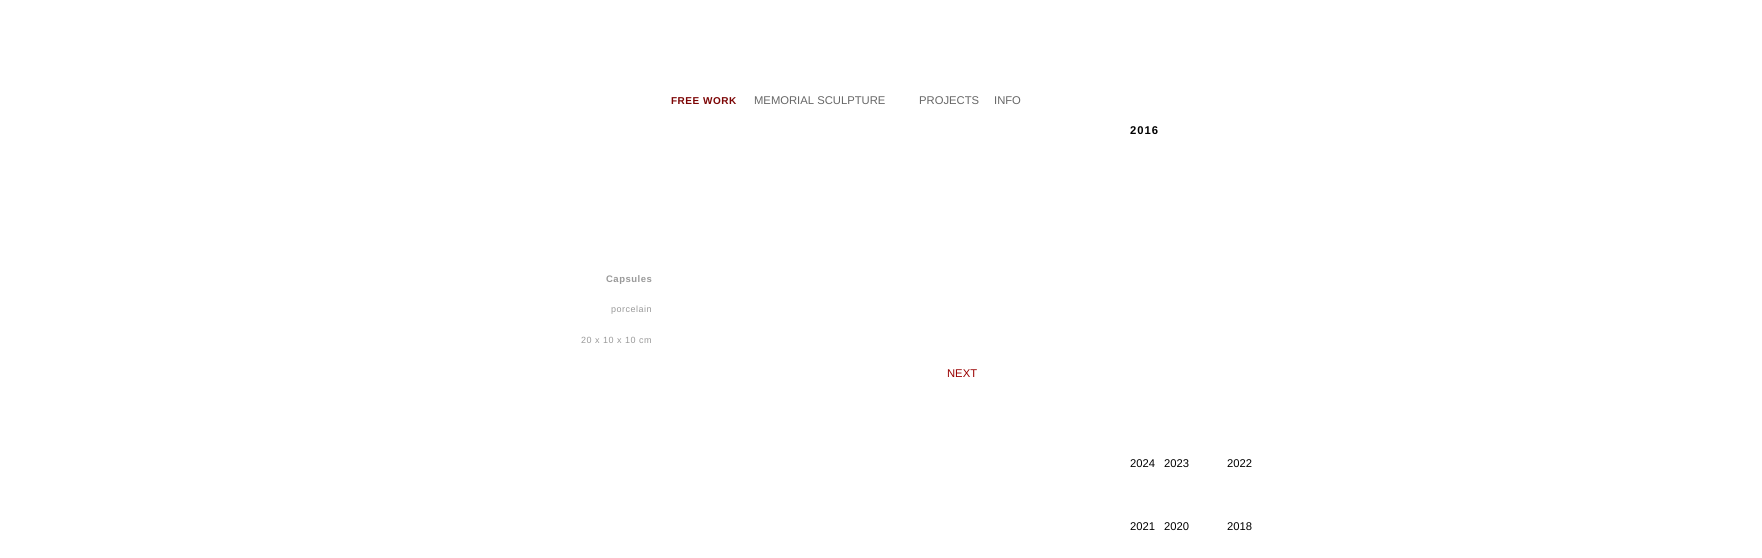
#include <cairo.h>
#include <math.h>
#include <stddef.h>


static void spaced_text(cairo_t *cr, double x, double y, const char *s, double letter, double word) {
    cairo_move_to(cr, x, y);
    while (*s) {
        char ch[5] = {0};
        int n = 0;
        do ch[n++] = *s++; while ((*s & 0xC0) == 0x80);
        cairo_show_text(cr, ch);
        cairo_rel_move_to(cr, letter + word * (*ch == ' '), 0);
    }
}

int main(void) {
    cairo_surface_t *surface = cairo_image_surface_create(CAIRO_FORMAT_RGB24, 1762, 558);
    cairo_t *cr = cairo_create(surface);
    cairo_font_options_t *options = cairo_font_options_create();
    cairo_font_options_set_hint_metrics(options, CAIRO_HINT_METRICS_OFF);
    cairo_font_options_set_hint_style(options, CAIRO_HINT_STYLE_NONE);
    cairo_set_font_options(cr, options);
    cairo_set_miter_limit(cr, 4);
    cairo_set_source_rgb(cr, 1, 1, 1);
    cairo_paint(cr);
    cairo_select_font_face(cr, "Liberation Sans", CAIRO_FONT_SLANT_NORMAL, CAIRO_FONT_WEIGHT_BOLD);
    cairo_set_font_size(cr, 10);
    cairo_set_source_rgb(cr, 0.486, 0.02, 0.02);
    spaced_text(cr, 671, 104, "FREE WORK", 0.5, 0);
    cairo_select_font_face(cr, "Liberation Sans", CAIRO_FONT_SLANT_NORMAL, CAIRO_FONT_WEIGHT_NORMAL);
    cairo_set_font_size(cr, 11.25);
    cairo_set_source_rgb(cr, 0.4, 0.4, 0.4);
    cairo_move_to(cr, 754, 104);
    cairo_show_text(cr, "MEMORIAL SCULPTURE");
    cairo_move_to(cr, 919, 104);
    cairo_show_text(cr, "PROJECTS");
    cairo_move_to(cr, 994, 104);
    cairo_show_text(cr, "INFO");
    cairo_select_font_face(cr, "Liberation Sans", CAIRO_FONT_SLANT_NORMAL, CAIRO_FONT_WEIGHT_BOLD);
    cairo_set_font_size(cr, 9.5);
    cairo_set_source_rgb(cr, 0.6, 0.6, 0.6);
    spaced_text(cr, 606, 282, "Capsules", 0.5, 0);
    cairo_select_font_face(cr, "Liberation Sans", CAIRO_FONT_SLANT_NORMAL, CAIRO_FONT_WEIGHT_NORMAL);
    cairo_set_font_size(cr, 9);
    spaced_text(cr, 611, 312, "porcelain", 0.5, 0);
    spaced_text(cr, 581, 343, "20 x 10 x 10 cm", 0.5, 0);
    cairo_select_font_face(cr, "Liberation Sans", CAIRO_FONT_SLANT_NORMAL, CAIRO_FONT_WEIGHT_BOLD);
    cairo_set_font_size(cr, 11.25);
    cairo_set_source_rgb(cr, 0, 0, 0);
    spaced_text(cr, 1130, 134, "2016", 1, 0);
    cairo_select_font_face(cr, "Liberation Sans", CAIRO_FONT_SLANT_NORMAL, CAIRO_FONT_WEIGHT_NORMAL);
    cairo_move_to(cr, 1130, 467);
    cairo_show_text(cr, "2024");
    cairo_move_to(cr, 1164, 467);
    cairo_show_text(cr, "2023");
    cairo_move_to(cr, 1227, 467);
    cairo_show_text(cr, "2022");
    cairo_move_to(cr, 1130, 530);
    cairo_show_text(cr, "2021");
    cairo_move_to(cr, 1164, 530);
    cairo_show_text(cr, "2020");
    cairo_move_to(cr, 1227, 530);
    cairo_show_text(cr, "2018");
    cairo_set_source_rgb(cr, 0.6, 0, 0);
    cairo_move_to(cr, 947, 377);
    cairo_show_text(cr, "NEXT");
    cairo_surface_write_to_png(surface, "page.png");
    cairo_font_options_destroy(options);
    cairo_destroy(cr);
    cairo_surface_destroy(surface);
    return 0;
}
